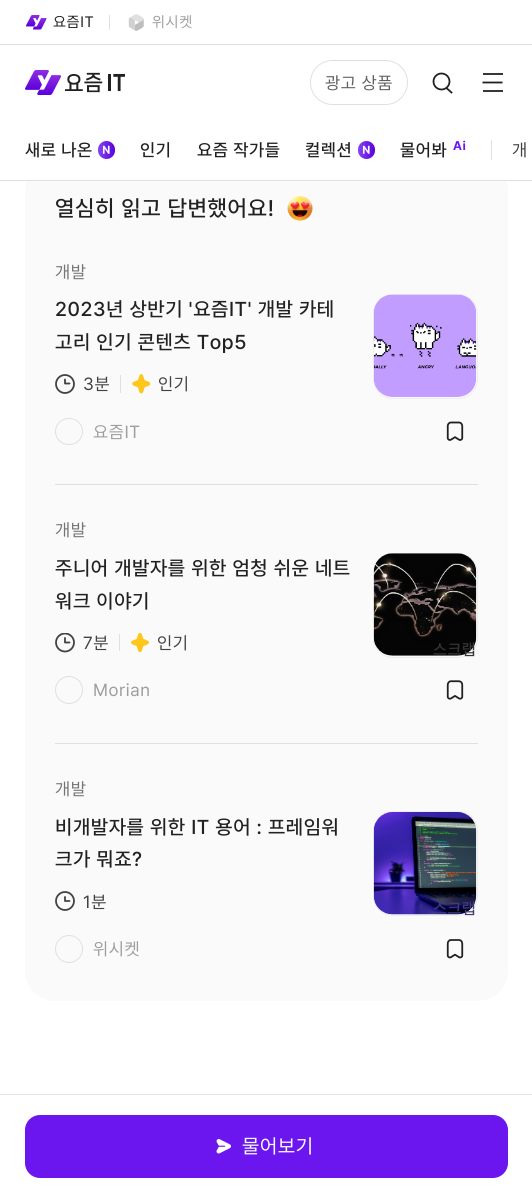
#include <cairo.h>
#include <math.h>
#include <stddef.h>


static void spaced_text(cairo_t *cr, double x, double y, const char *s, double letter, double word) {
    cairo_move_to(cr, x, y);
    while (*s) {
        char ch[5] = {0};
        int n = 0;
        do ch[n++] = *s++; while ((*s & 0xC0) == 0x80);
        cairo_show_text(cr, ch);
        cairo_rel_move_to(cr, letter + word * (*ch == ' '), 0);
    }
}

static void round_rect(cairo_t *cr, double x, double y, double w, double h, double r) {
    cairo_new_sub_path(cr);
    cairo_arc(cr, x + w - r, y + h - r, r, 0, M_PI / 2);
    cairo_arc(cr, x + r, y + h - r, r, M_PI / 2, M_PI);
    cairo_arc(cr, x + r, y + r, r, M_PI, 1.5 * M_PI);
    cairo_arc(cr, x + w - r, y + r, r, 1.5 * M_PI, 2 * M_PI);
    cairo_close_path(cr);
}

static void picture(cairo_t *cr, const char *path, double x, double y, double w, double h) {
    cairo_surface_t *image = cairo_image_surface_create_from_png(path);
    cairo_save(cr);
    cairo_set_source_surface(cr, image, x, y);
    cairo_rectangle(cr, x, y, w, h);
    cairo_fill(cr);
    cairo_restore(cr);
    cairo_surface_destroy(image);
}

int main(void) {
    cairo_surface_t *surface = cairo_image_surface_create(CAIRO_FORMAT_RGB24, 532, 1197);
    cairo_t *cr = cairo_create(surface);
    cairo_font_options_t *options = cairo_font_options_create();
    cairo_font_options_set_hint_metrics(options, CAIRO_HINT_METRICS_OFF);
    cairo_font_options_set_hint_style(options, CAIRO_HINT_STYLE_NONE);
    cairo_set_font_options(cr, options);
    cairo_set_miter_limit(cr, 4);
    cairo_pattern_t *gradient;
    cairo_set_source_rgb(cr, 1, 1, 1);
    cairo_paint(cr);
    cairo_set_source_rgb(cr, 0.98, 0.98, 0.98);
    round_rect(cr, 25, 161, 483, 840, 30);
    cairo_fill(cr);
    cairo_set_source_rgb(cr, 1, 1, 1);
    cairo_rectangle(cr, 27, 161, 479, 19);
    cairo_fill(cr);
    cairo_set_source_rgb(cr, 0.878, 0.878, 0.878);
    cairo_rectangle(cr, 0, 44, 532, 1);
    cairo_fill(cr);
    picture(cr, "img1.png", 26, 15, 21, 15);
    cairo_select_font_face(cr, "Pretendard", CAIRO_FONT_SLANT_NORMAL, CAIRO_FONT_WEIGHT_NORMAL);
    cairo_set_font_size(cr, 15);
    cairo_set_source_rgb(cr, 0.129, 0.129, 0.129);
    spaced_text(cr, 53, 27, "요즘IT", 0.6, 0);
    cairo_set_source_rgb(cr, 0.878, 0.878, 0.878);
    cairo_rectangle(cr, 109, 15, 1, 15);
    cairo_fill(cr);
    picture(cr, "img2.png", 128, 14, 16, 17);
    cairo_set_source_rgb(cr, 0.62, 0.62, 0.62);
    spaced_text(cr, 152, 27, "위시켓", 0.6, 0);
    picture(cr, "img3.png", 25, 70, 100, 25);
    round_rect(cr, 310.5, 60.5, 97, 44, 22);
    cairo_set_source_rgb(cr, 0.878, 0.878, 0.878);
    cairo_set_line_width(cr, 1);
    cairo_stroke(cr);
    cairo_set_font_size(cr, 17.5);
    cairo_set_source_rgb(cr, 0.38, 0.38, 0.38);
    spaced_text(cr, 325, 89, "광고 상품", 0.6, 0);
    cairo_new_path(cr);
    cairo_arc(cr, 441.5, 81.5, 8, 0, 2 * M_PI);
    cairo_set_source_rgb(cr, 0.129, 0.129, 0.129);
    cairo_set_line_width(cr, 1.8);
    cairo_stroke(cr);
    cairo_new_path(cr);
    cairo_move_to(cr, 451.5, 92.5);
    cairo_line_to(cr, 447, 88.5);
    cairo_set_line_cap(cr, CAIRO_LINE_CAP_SQUARE);
    cairo_stroke(cr);
    cairo_set_source_rgb(cr, 0.216, 0.216, 0.216);
    cairo_rectangle(cr, 483, 73, 20, 2);
    cairo_fill(cr);
    cairo_new_path(cr);
    cairo_move_to(cr, 482.5, 82.5);
    cairo_line_to(cr, 502.5, 82.5);
    cairo_set_source_rgb(cr, 0.129, 0.129, 0.129);
    cairo_set_line_cap(cr, CAIRO_LINE_CAP_BUTT);
    cairo_stroke(cr);
    cairo_set_source_rgb(cr, 0.216, 0.216, 0.216);
    cairo_rectangle(cr, 483, 90, 20, 2);
    cairo_fill(cr);
    cairo_select_font_face(cr, "Pretendard Medium", CAIRO_FONT_SLANT_NORMAL, CAIRO_FONT_WEIGHT_NORMAL);
    cairo_set_source_rgb(cr, 0.129, 0.129, 0.129);
    spaced_text(cr, 25, 156, "새로 나온", 0.6, 0);
    gradient = cairo_pattern_create_linear(98, 150, 115, 150);
    cairo_pattern_add_color_stop_rgba(gradient, 0, 0.525, 0.275, 0.949, 1);
    cairo_pattern_add_color_stop_rgba(gradient, 1, 0.353, 0, 0.859, 1);
    cairo_set_source(cr, gradient);
    cairo_pattern_destroy(gradient);
    round_rect(cr, 98, 141, 17, 18, 8.5);
    cairo_fill(cr);
    picture(cr, "img4.png", 102, 145, 8, 9);
    cairo_set_source_rgb(cr, 0.129, 0.129, 0.129);
    spaced_text(cr, 140, 156, "인기", 0.6, 0);
    spaced_text(cr, 197, 156, "요즘 작가들", 0.6, 0);
    spaced_text(cr, 305, 156, "컬렉션", 0.6, 0);
    gradient = cairo_pattern_create_linear(358, 150, 375, 150);
    cairo_pattern_add_color_stop_rgba(gradient, 0, 0.525, 0.275, 0.949, 1);
    cairo_pattern_add_color_stop_rgba(gradient, 1, 0.353, 0, 0.859, 1);
    cairo_set_source(cr, gradient);
    cairo_pattern_destroy(gradient);
    round_rect(cr, 358, 141, 17, 18, 8.5);
    cairo_fill(cr);
    picture(cr, "img4.png", 362, 145, 8, 9);
    cairo_set_source_rgb(cr, 0.129, 0.129, 0.129);
    spaced_text(cr, 400, 156, "물어봐", 0.6, 0);
    picture(cr, "img5.png", 453, 140, 13, 10);
    cairo_set_source_rgb(cr, 0.878, 0.878, 0.878);
    cairo_rectangle(cr, 491, 140, 1, 20);
    cairo_fill(cr);
    cairo_select_font_face(cr, "Pretendard", CAIRO_FONT_SLANT_NORMAL, CAIRO_FONT_WEIGHT_NORMAL);
    cairo_set_source_rgb(cr, 0.259, 0.259, 0.259);
    spaced_text(cr, 512, 156, "개", 0.6, 0);
    cairo_set_source_rgb(cr, 0.878, 0.878, 0.878);
    cairo_rectangle(cr, 0, 180, 532, 1);
    cairo_fill(cr);
    cairo_select_font_face(cr, "Pretendard Medium", CAIRO_FONT_SLANT_NORMAL, CAIRO_FONT_WEIGHT_NORMAL);
    cairo_set_font_size(cr, 22.5);
    cairo_set_source_rgb(cr, 0.129, 0.129, 0.129);
    spaced_text(cr, 55, 216, "열심히 읽고 답변했어요!", 0.6, 0);
    picture(cr, "img6.png", 287, 195, 26, 26);
    cairo_select_font_face(cr, "Pretendard", CAIRO_FONT_SLANT_NORMAL, CAIRO_FONT_WEIGHT_NORMAL);
    cairo_set_font_size(cr, 17.5);
    cairo_set_source_rgb(cr, 0.459, 0.459, 0.459);
    spaced_text(cr, 55, 278, "개발", 0.6, 0);
    cairo_select_font_face(cr, "Pretendard Medium", CAIRO_FONT_SLANT_NORMAL, CAIRO_FONT_WEIGHT_NORMAL);
    cairo_set_font_size(cr, 20);
    cairo_set_source_rgb(cr, 0.129, 0.129, 0.129);
    spaced_text(cr, 55, 316, "2023년 상반기 '요즘IT' 개발 카테", 0.6, 0);
    spaced_text(cr, 55, 349, "고리 인기 콘텐츠 Top5", 0.6, 0);
    cairo_new_path(cr);
    cairo_arc(cr, 65, 384, 9, 0, 2 * M_PI);
    cairo_set_source_rgb(cr, 0.259, 0.259, 0.259);
    cairo_stroke(cr);
    cairo_new_path(cr);
    cairo_move_to(cr, 65, 379.5);
    cairo_line_to(cr, 65, 383.5);
    cairo_line_to(cr, 69.5, 383.5);
    cairo_set_line_cap(cr, CAIRO_LINE_CAP_ROUND);
    cairo_set_line_join(cr, CAIRO_LINE_JOIN_ROUND);
    cairo_stroke(cr);
    cairo_select_font_face(cr, "Pretendard", CAIRO_FONT_SLANT_NORMAL, CAIRO_FONT_WEIGHT_NORMAL);
    cairo_set_font_size(cr, 17.5);
    spaced_text(cr, 83, 390, "3분", 0.6, 0);
    cairo_set_source_rgb(cr, 0.878, 0.878, 0.878);
    cairo_rectangle(cr, 120, 375, 1, 18);
    cairo_fill(cr);
    picture(cr, "img7.png", 132, 374, 19, 20);
    cairo_set_source_rgb(cr, 0.259, 0.259, 0.259);
    spaced_text(cr, 158, 390, "인기", 0.6, 0);
    round_rect(cr, 373.5, 294.5, 104, 104, 19.5);
    cairo_set_source_rgb(cr, 0.933, 0.933, 0.933);
    cairo_set_line_width(cr, 1);
    cairo_set_line_cap(cr, CAIRO_LINE_CAP_BUTT);
    cairo_set_line_join(cr, CAIRO_LINE_JOIN_MITER);
    cairo_stroke(cr);
    picture(cr, "img8.png", 373, 294, 104, 103);
    round_rect(cr, 55.5, 418.5, 27, 26, 13);
    cairo_set_source_rgb(cr, 0.878, 0.878, 0.878);
    cairo_stroke(cr);
    cairo_set_source_rgb(cr, 0.62, 0.62, 0.62);
    spaced_text(cr, 93, 438, "요즘IT", 0.6, 0);
    picture(cr, "img9.png", 446, 421, 18, 20);
    cairo_set_source_rgb(cr, 0.878, 0.878, 0.878);
    cairo_rectangle(cr, 55, 484, 423, 1);
    cairo_fill(cr);
    cairo_set_source_rgb(cr, 0.459, 0.459, 0.459);
    spaced_text(cr, 55, 536, "개발", 0.6, 0);
    cairo_select_font_face(cr, "Pretendard Medium", CAIRO_FONT_SLANT_NORMAL, CAIRO_FONT_WEIGHT_NORMAL);
    cairo_set_font_size(cr, 20);
    cairo_set_source_rgb(cr, 0.129, 0.129, 0.129);
    spaced_text(cr, 55, 575, "주니어 개발자를 위한 엄청 쉬운 네트", 0.6, 0);
    spaced_text(cr, 55, 608, "워크 이야기", 0.6, 0);
    cairo_save(cr);
    cairo_rectangle(cr, 55, 633, 20, 20);
    cairo_clip(cr);
    cairo_arc(cr, 65, 642.5, 9, 0, 2 * M_PI);
    cairo_set_source_rgb(cr, 0.259, 0.259, 0.259);
    cairo_set_line_width(cr, 1.8);
    cairo_stroke(cr);
    cairo_restore(cr);
    cairo_new_path(cr);
    cairo_move_to(cr, 65, 638);
    cairo_line_to(cr, 65, 642.5);
    cairo_line_to(cr, 69.5, 642.5);
    cairo_set_source_rgb(cr, 0.259, 0.259, 0.259);
    cairo_set_line_width(cr, 1.8);
    cairo_set_line_cap(cr, CAIRO_LINE_CAP_ROUND);
    cairo_set_line_join(cr, CAIRO_LINE_JOIN_ROUND);
    cairo_stroke(cr);
    cairo_select_font_face(cr, "Pretendard", CAIRO_FONT_SLANT_NORMAL, CAIRO_FONT_WEIGHT_NORMAL);
    cairo_set_font_size(cr, 17.5);
    spaced_text(cr, 83, 649, "7분", 0.6, 0);
    cairo_set_source_rgb(cr, 0.878, 0.878, 0.878);
    cairo_rectangle(cr, 119, 634, 1, 17);
    cairo_fill(cr);
    picture(cr, "img10.png", 131, 633, 18, 20);
    cairo_set_source_rgb(cr, 0.259, 0.259, 0.259);
    spaced_text(cr, 157, 649, "인기", 0.6, 0);
    round_rect(cr, 373.5, 553.5, 104, 104, 19.5);
    cairo_set_source_rgb(cr, 0.933, 0.933, 0.933);
    cairo_set_line_width(cr, 1);
    cairo_set_line_cap(cr, CAIRO_LINE_CAP_BUTT);
    cairo_set_line_join(cr, CAIRO_LINE_JOIN_MITER);
    cairo_stroke(cr);
    picture(cr, "img11.png", 373, 553, 104, 103);
    cairo_select_font_face(cr, "Pretendard Medium", CAIRO_FONT_SLANT_NORMAL, CAIRO_FONT_WEIGHT_NORMAL);
    cairo_set_font_size(cr, 16);
    cairo_set_source_rgb(cr, 0.212, 0.212, 0.212);
    spaced_text(cr, 433, 655, "스크랩", 0.6, 0);
    picture(cr, "img12.png", 446, 680, 18, 20);
    cairo_arc(cr, 69, 690, 13.5, 0, 2 * M_PI);
    cairo_set_source_rgb(cr, 0.878, 0.878, 0.878);
    cairo_stroke(cr);
    cairo_select_font_face(cr, "Pretendard", CAIRO_FONT_SLANT_NORMAL, CAIRO_FONT_WEIGHT_NORMAL);
    cairo_set_font_size(cr, 17.5);
    cairo_set_source_rgb(cr, 0.62, 0.62, 0.62);
    spaced_text(cr, 93, 696, "Morian", 0.6, 0);
    cairo_set_source_rgb(cr, 0.878, 0.878, 0.878);
    cairo_rectangle(cr, 55, 743, 423, 1);
    cairo_fill(cr);
    cairo_set_source_rgb(cr, 0.459, 0.459, 0.459);
    spaced_text(cr, 55, 795, "개발", 0.6, 0);
    cairo_select_font_face(cr, "Pretendard Medium", CAIRO_FONT_SLANT_NORMAL, CAIRO_FONT_WEIGHT_NORMAL);
    cairo_set_font_size(cr, 20);
    cairo_set_source_rgb(cr, 0.129, 0.129, 0.129);
    spaced_text(cr, 55, 834, "비개발자를 위한 IT 용어 : 프레임워", 0.6, 0);
    spaced_text(cr, 55, 866, "크가 뭐죠?", 0.6, 0);
    cairo_new_path(cr);
    cairo_arc(cr, 65, 901, 9, 0, 2 * M_PI);
    cairo_set_source_rgb(cr, 0.259, 0.259, 0.259);
    cairo_set_line_width(cr, 1.8);
    cairo_stroke(cr);
    cairo_new_path(cr);
    cairo_move_to(cr, 65, 897);
    cairo_line_to(cr, 65, 901);
    cairo_line_to(cr, 69.5, 901);
    cairo_set_line_cap(cr, CAIRO_LINE_CAP_ROUND);
    cairo_set_line_join(cr, CAIRO_LINE_JOIN_ROUND);
    cairo_stroke(cr);
    cairo_select_font_face(cr, "Pretendard", CAIRO_FONT_SLANT_NORMAL, CAIRO_FONT_WEIGHT_NORMAL);
    cairo_set_font_size(cr, 17.5);
    spaced_text(cr, 83, 908, "1분", 0.6, 0);
    round_rect(cr, 373.5, 811.5, 104, 104, 19.5);
    cairo_set_source_rgb(cr, 0.933, 0.933, 0.933);
    cairo_set_line_width(cr, 1);
    cairo_set_line_cap(cr, CAIRO_LINE_CAP_BUTT);
    cairo_set_line_join(cr, CAIRO_LINE_JOIN_MITER);
    cairo_stroke(cr);
    picture(cr, "img13.png", 373, 812, 104, 103);
    cairo_select_font_face(cr, "Pretendard Medium", CAIRO_FONT_SLANT_NORMAL, CAIRO_FONT_WEIGHT_NORMAL);
    cairo_set_font_size(cr, 16);
    cairo_set_source_rgb(cr, 0.255, 0.247, 0.451);
    spaced_text(cr, 433, 914, "스크랩", 0.6, 0);
    picture(cr, "img14.png", 446, 939, 18, 20);
    cairo_arc(cr, 69, 949, 13.5, 0, 2 * M_PI);
    cairo_set_source_rgb(cr, 0.878, 0.878, 0.878);
    cairo_stroke(cr);
    cairo_select_font_face(cr, "Pretendard", CAIRO_FONT_SLANT_NORMAL, CAIRO_FONT_WEIGHT_NORMAL);
    cairo_set_font_size(cr, 17.5);
    cairo_set_source_rgb(cr, 0.62, 0.62, 0.62);
    spaced_text(cr, 93, 955, "위시켓", 0.6, 0);
    cairo_set_source_rgb(cr, 0.898, 0.906, 0.922);
    cairo_rectangle(cr, 0, 1094, 532, 1);
    cairo_fill(cr);
    cairo_set_source_rgb(cr, 0.42, 0.086, 0.933);
    round_rect(cr, 25, 1115, 483, 63, 15);
    cairo_fill(cr);
    picture(cr, "img15.png", 216, 1139, 15, 15);
    cairo_set_font_size(cr, 20);
    cairo_set_source_rgb(cr, 1, 1, 1);
    spaced_text(cr, 242, 1153, "물어보기", 0.6, 0);
    cairo_surface_write_to_png(surface, "page.png");
    cairo_font_options_destroy(options);
    cairo_destroy(cr);
    cairo_surface_destroy(surface);
    return 0;
}
